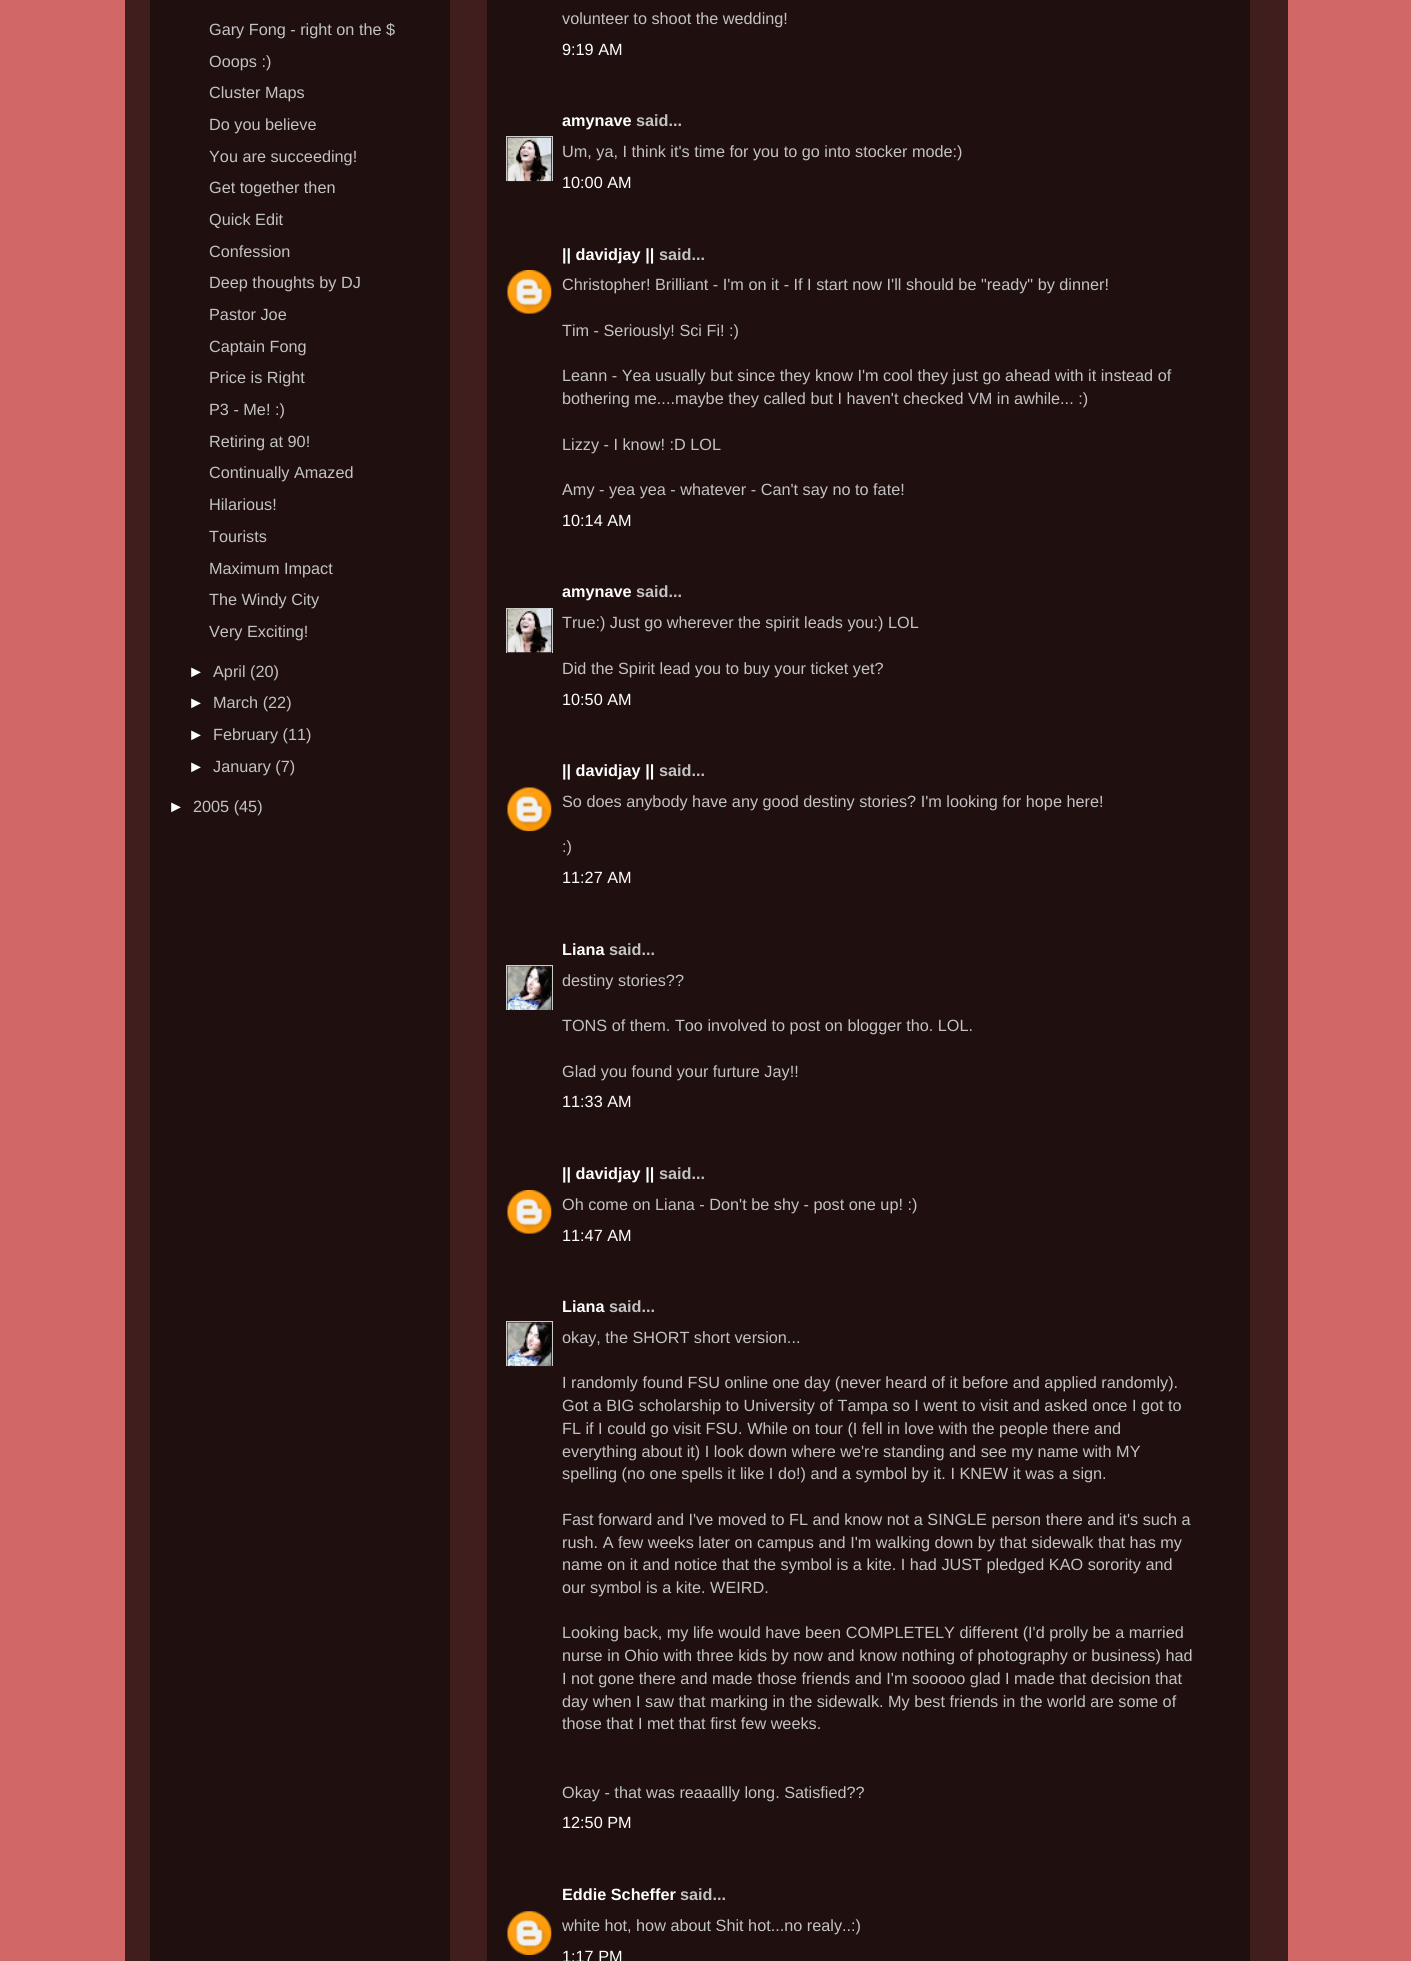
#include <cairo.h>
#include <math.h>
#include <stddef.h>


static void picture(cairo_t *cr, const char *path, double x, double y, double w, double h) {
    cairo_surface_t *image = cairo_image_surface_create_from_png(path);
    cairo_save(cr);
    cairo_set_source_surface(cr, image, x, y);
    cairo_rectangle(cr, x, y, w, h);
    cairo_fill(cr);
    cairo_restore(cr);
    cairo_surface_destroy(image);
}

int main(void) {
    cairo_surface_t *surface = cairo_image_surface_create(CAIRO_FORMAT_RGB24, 1411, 1961);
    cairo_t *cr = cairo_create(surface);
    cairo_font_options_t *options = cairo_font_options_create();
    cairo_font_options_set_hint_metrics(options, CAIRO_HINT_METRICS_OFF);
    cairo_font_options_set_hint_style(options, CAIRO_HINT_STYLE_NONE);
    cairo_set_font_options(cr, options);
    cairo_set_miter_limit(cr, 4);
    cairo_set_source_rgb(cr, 0.824, 0.404, 0.404);
    cairo_paint(cr);
    cairo_set_source_rgb(cr, 0.255, 0.118, 0.118);
    cairo_rectangle(cr, 125, 0, 1163, 1961);
    cairo_fill(cr);
    cairo_set_source_rgb(cr, 0.125, 0.059, 0.059);
    cairo_rectangle(cr, 150, 0, 300, 1961);
    cairo_fill(cr);
    cairo_select_font_face(cr, "Liberation Sans", CAIRO_FONT_SLANT_NORMAL, CAIRO_FONT_WEIGHT_NORMAL);
    cairo_set_font_size(cr, 16.25);
    cairo_set_source_rgb(cr, 0.765, 0.765, 0.765);
    cairo_move_to(cr, 209, 35);
    cairo_show_text(cr, "Gary Fong - right on the $");
    cairo_move_to(cr, 209, 67);
    cairo_show_text(cr, "Ooops :)");
    cairo_move_to(cr, 209, 98);
    cairo_show_text(cr, "Cluster Maps");
    cairo_move_to(cr, 209, 130);
    cairo_show_text(cr, "Do you believe");
    cairo_move_to(cr, 209, 162);
    cairo_show_text(cr, "You are succeeding!");
    cairo_move_to(cr, 209, 193);
    cairo_show_text(cr, "Get together then");
    cairo_move_to(cr, 209, 225);
    cairo_show_text(cr, "Quick Edit");
    cairo_move_to(cr, 209, 257);
    cairo_show_text(cr, "Confession");
    cairo_move_to(cr, 209, 288);
    cairo_show_text(cr, "Deep thoughts by DJ");
    cairo_move_to(cr, 209, 320);
    cairo_show_text(cr, "Pastor Joe");
    cairo_move_to(cr, 209, 352);
    cairo_show_text(cr, "Captain Fong");
    cairo_move_to(cr, 209, 383);
    cairo_show_text(cr, "Price is Right");
    cairo_move_to(cr, 209, 415);
    cairo_show_text(cr, "P3 - Me! :)");
    cairo_move_to(cr, 209, 447);
    cairo_show_text(cr, "Retiring at 90!");
    cairo_move_to(cr, 209, 478);
    cairo_show_text(cr, "Continually Amazed");
    cairo_move_to(cr, 209, 510);
    cairo_show_text(cr, "Hilarious!");
    cairo_move_to(cr, 209, 542);
    cairo_show_text(cr, "Tourists");
    cairo_move_to(cr, 209, 574);
    cairo_show_text(cr, "Maximum Impact");
    cairo_move_to(cr, 209, 605);
    cairo_show_text(cr, "The Windy City");
    cairo_move_to(cr, 209, 637);
    cairo_show_text(cr, "Very Exciting!");
    cairo_set_source_rgb(cr, 1, 1, 1);
    cairo_move_to(cr, 188, 677);
    cairo_show_text(cr, "►");
    cairo_set_source_rgb(cr, 0.765, 0.765, 0.765);
    cairo_move_to(cr, 213, 677);
    cairo_show_text(cr, "April (20)");
    cairo_set_source_rgb(cr, 1, 1, 1);
    cairo_move_to(cr, 188, 708);
    cairo_show_text(cr, "►");
    cairo_set_source_rgb(cr, 0.765, 0.765, 0.765);
    cairo_move_to(cr, 213, 708);
    cairo_show_text(cr, "March (22)");
    cairo_set_source_rgb(cr, 1, 1, 1);
    cairo_move_to(cr, 188, 740);
    cairo_show_text(cr, "►");
    cairo_set_source_rgb(cr, 0.765, 0.765, 0.765);
    cairo_move_to(cr, 213, 740);
    cairo_show_text(cr, "February (11)");
    cairo_set_source_rgb(cr, 1, 1, 1);
    cairo_move_to(cr, 188, 772);
    cairo_show_text(cr, "►");
    cairo_set_source_rgb(cr, 0.765, 0.765, 0.765);
    cairo_move_to(cr, 213, 772);
    cairo_show_text(cr, "January (7)");
    cairo_set_source_rgb(cr, 1, 1, 1);
    cairo_move_to(cr, 168, 812);
    cairo_show_text(cr, "►");
    cairo_set_source_rgb(cr, 0.765, 0.765, 0.765);
    cairo_move_to(cr, 193, 812);
    cairo_show_text(cr, "2005 (45)");
    cairo_set_source_rgb(cr, 0.125, 0.059, 0.059);
    cairo_rectangle(cr, 487, 0, 763, 1961);
    cairo_fill(cr);
    cairo_set_source_rgb(cr, 0.765, 0.765, 0.765);
    cairo_move_to(cr, 562, 24);
    cairo_show_text(cr, "volunteer to shoot the wedding!");
    cairo_set_source_rgb(cr, 1, 1, 1);
    cairo_move_to(cr, 562, 55);
    cairo_show_text(cr, "9:19 AM");
    cairo_select_font_face(cr, "Liberation Sans", CAIRO_FONT_SLANT_NORMAL, CAIRO_FONT_WEIGHT_BOLD);
    cairo_move_to(cr, 562, 126);
    cairo_show_text(cr, "amynave");
    cairo_set_source_rgb(cr, 0.765, 0.765, 0.765);
    cairo_move_to(cr, 636, 126);
    cairo_show_text(cr, "said...");
    cairo_save(cr);
    cairo_rectangle(cr, 506, 136, 47, 45);
    cairo_clip(cr);
    cairo_rectangle(cr, 506.5, 136.5, 46, 46);
    cairo_set_source_rgb(cr, 0.8, 0.8, 0.8);
    cairo_set_line_width(cr, 1);
    cairo_stroke(cr);
    cairo_restore(cr);
    picture(cr, "img1.png", 507, 137, 45, 45);
    cairo_select_font_face(cr, "Liberation Sans", CAIRO_FONT_SLANT_NORMAL, CAIRO_FONT_WEIGHT_NORMAL);
    cairo_move_to(cr, 562, 157);
    cairo_show_text(cr, "Um, ya, I think it's time for you to go into stocker mode:)");
    cairo_set_source_rgb(cr, 1, 1, 1);
    cairo_move_to(cr, 562, 188);
    cairo_show_text(cr, "10:00 AM");
    cairo_select_font_face(cr, "Liberation Sans", CAIRO_FONT_SLANT_NORMAL, CAIRO_FONT_WEIGHT_BOLD);
    cairo_move_to(cr, 562, 260);
    cairo_show_text(cr, "|| davidjay ||");
    cairo_set_source_rgb(cr, 0.765, 0.765, 0.765);
    cairo_move_to(cr, 659, 260);
    cairo_show_text(cr, "said...");
    picture(cr, "img2.png", 507, 270, 45, 44);
    cairo_select_font_face(cr, "Liberation Sans", CAIRO_FONT_SLANT_NORMAL, CAIRO_FONT_WEIGHT_NORMAL);
    cairo_move_to(cr, 562, 290);
    cairo_show_text(cr, "Christopher! Brilliant - I'm on it - If I start now I'll should be \"ready\" by dinner!");
    cairo_move_to(cr, 562, 336);
    cairo_show_text(cr, "Tim - Seriously! Sci Fi! :)");
    cairo_move_to(cr, 562, 381);
    cairo_show_text(cr, "Leann - Yea usually but since they know I'm cool they just go ahead with it instead of");
    cairo_move_to(cr, 562, 404);
    cairo_show_text(cr, "bothering me....maybe they called but I haven't checked VM in awhile... :)");
    cairo_move_to(cr, 562, 450);
    cairo_show_text(cr, "Lizzy - I know! :D LOL");
    cairo_move_to(cr, 562, 495);
    cairo_show_text(cr, "Amy - yea yea - whatever - Can't say no to fate!");
    cairo_set_source_rgb(cr, 1, 1, 1);
    cairo_move_to(cr, 562, 526);
    cairo_show_text(cr, "10:14 AM");
    cairo_select_font_face(cr, "Liberation Sans", CAIRO_FONT_SLANT_NORMAL, CAIRO_FONT_WEIGHT_BOLD);
    cairo_move_to(cr, 562, 597);
    cairo_show_text(cr, "amynave");
    cairo_set_source_rgb(cr, 0.765, 0.765, 0.765);
    cairo_move_to(cr, 636, 597);
    cairo_show_text(cr, "said...");
    cairo_save(cr);
    cairo_rectangle(cr, 506, 608, 47, 45);
    cairo_clip(cr);
    cairo_rectangle(cr, 506.5, 608.5, 46, 45);
    cairo_set_source_rgb(cr, 0.8, 0.8, 0.8);
    cairo_set_line_width(cr, 1);
    cairo_stroke(cr);
    cairo_restore(cr);
    picture(cr, "img3.png", 507, 608, 45, 45);
    cairo_select_font_face(cr, "Liberation Sans", CAIRO_FONT_SLANT_NORMAL, CAIRO_FONT_WEIGHT_NORMAL);
    cairo_move_to(cr, 562, 628);
    cairo_show_text(cr, "True:) Just go wherever the spirit leads you:) LOL");
    cairo_move_to(cr, 562, 674);
    cairo_show_text(cr, "Did the Spirit lead you to buy your ticket yet?");
    cairo_set_source_rgb(cr, 1, 1, 1);
    cairo_move_to(cr, 562, 705);
    cairo_show_text(cr, "10:50 AM");
    cairo_select_font_face(cr, "Liberation Sans", CAIRO_FONT_SLANT_NORMAL, CAIRO_FONT_WEIGHT_BOLD);
    cairo_move_to(cr, 562, 776);
    cairo_show_text(cr, "|| davidjay ||");
    cairo_set_source_rgb(cr, 0.765, 0.765, 0.765);
    cairo_move_to(cr, 659, 776);
    cairo_show_text(cr, "said...");
    picture(cr, "img4.png", 507, 787, 45, 45);
    cairo_select_font_face(cr, "Liberation Sans", CAIRO_FONT_SLANT_NORMAL, CAIRO_FONT_WEIGHT_NORMAL);
    cairo_move_to(cr, 562, 807);
    cairo_show_text(cr, "So does anybody have any good destiny stories? I'm looking for hope here!");
    cairo_move_to(cr, 562, 852);
    cairo_show_text(cr, ":)");
    cairo_set_source_rgb(cr, 1, 1, 1);
    cairo_move_to(cr, 562, 883);
    cairo_show_text(cr, "11:27 AM");
    cairo_select_font_face(cr, "Liberation Sans", CAIRO_FONT_SLANT_NORMAL, CAIRO_FONT_WEIGHT_BOLD);
    cairo_move_to(cr, 562, 955);
    cairo_show_text(cr, "Liana");
    cairo_set_source_rgb(cr, 0.765, 0.765, 0.765);
    cairo_move_to(cr, 609, 955);
    cairo_show_text(cr, "said...");
    cairo_save(cr);
    cairo_rectangle(cr, 506, 965, 47, 45);
    cairo_clip(cr);
    cairo_rectangle(cr, 506.5, 965.5, 46, 45);
    cairo_set_source_rgb(cr, 0.8, 0.8, 0.8);
    cairo_set_line_width(cr, 1);
    cairo_stroke(cr);
    cairo_restore(cr);
    picture(cr, "img5.png", 507, 966, 45, 44);
    cairo_select_font_face(cr, "Liberation Sans", CAIRO_FONT_SLANT_NORMAL, CAIRO_FONT_WEIGHT_NORMAL);
    cairo_move_to(cr, 562, 986);
    cairo_show_text(cr, "destiny stories?\077");
    cairo_move_to(cr, 562, 1031);
    cairo_show_text(cr, "TONS of them. Too involved to post on blogger tho. LOL.");
    cairo_move_to(cr, 562, 1077);
    cairo_show_text(cr, "Glad you found your furture Jay!!");
    cairo_set_source_rgb(cr, 1, 1, 1);
    cairo_move_to(cr, 562, 1107);
    cairo_show_text(cr, "11:33 AM");
    cairo_select_font_face(cr, "Liberation Sans", CAIRO_FONT_SLANT_NORMAL, CAIRO_FONT_WEIGHT_BOLD);
    cairo_move_to(cr, 562, 1179);
    cairo_show_text(cr, "|| davidjay ||");
    cairo_set_source_rgb(cr, 0.765, 0.765, 0.765);
    cairo_move_to(cr, 659, 1179);
    cairo_show_text(cr, "said...");
    picture(cr, "img2.png", 507, 1190, 45, 44);
    cairo_select_font_face(cr, "Liberation Sans", CAIRO_FONT_SLANT_NORMAL, CAIRO_FONT_WEIGHT_NORMAL);
    cairo_move_to(cr, 562, 1210);
    cairo_show_text(cr, "Oh come on Liana - Don't be shy - post one up! :)");
    cairo_set_source_rgb(cr, 1, 1, 1);
    cairo_move_to(cr, 562, 1241);
    cairo_show_text(cr, "11:47 AM");
    cairo_select_font_face(cr, "Liberation Sans", CAIRO_FONT_SLANT_NORMAL, CAIRO_FONT_WEIGHT_BOLD);
    cairo_move_to(cr, 562, 1312);
    cairo_show_text(cr, "Liana");
    cairo_set_source_rgb(cr, 0.765, 0.765, 0.765);
    cairo_move_to(cr, 609, 1312);
    cairo_show_text(cr, "said...");
    cairo_save(cr);
    cairo_rectangle(cr, 506, 1321, 47, 45);
    cairo_clip(cr);
    cairo_rectangle(cr, 506.5, 1321.5, 46, 46);
    cairo_set_source_rgb(cr, 0.8, 0.8, 0.8);
    cairo_set_line_width(cr, 1);
    cairo_stroke(cr);
    cairo_restore(cr);
    picture(cr, "img6.png", 507, 1322, 45, 45);
    cairo_select_font_face(cr, "Liberation Sans", CAIRO_FONT_SLANT_NORMAL, CAIRO_FONT_WEIGHT_NORMAL);
    cairo_move_to(cr, 562, 1343);
    cairo_show_text(cr, "okay, the SHORT short version...");
    cairo_move_to(cr, 562, 1388);
    cairo_show_text(cr, "I randomly found FSU online one day (never heard of it before and applied randomly).");
    cairo_move_to(cr, 562, 1411);
    cairo_show_text(cr, "Got a BIG scholarship to University of Tampa so I went to visit and asked once I got to");
    cairo_move_to(cr, 562, 1434);
    cairo_show_text(cr, "FL if I could go visit FSU. While on tour (I fell in love with the people there and");
    cairo_move_to(cr, 562, 1457);
    cairo_show_text(cr, "everything about it) I look down where we're standing and see my name with MY");
    cairo_move_to(cr, 562, 1479);
    cairo_show_text(cr, "spelling (no one spells it like I do!) and a symbol by it. I KNEW it was a sign.");
    cairo_move_to(cr, 562, 1525);
    cairo_show_text(cr, "Fast forward and I've moved to FL and know not a SINGLE person there and it's such a");
    cairo_move_to(cr, 562, 1548);
    cairo_show_text(cr, "rush. A few weeks later on campus and I'm walking down by that sidewalk that has my");
    cairo_move_to(cr, 562, 1570);
    cairo_show_text(cr, "name on it and notice that the symbol is a kite. I had JUST pledged KAO sorority and");
    cairo_move_to(cr, 562, 1593);
    cairo_show_text(cr, "our symbol is a kite. WEIRD.");
    cairo_move_to(cr, 562, 1638);
    cairo_show_text(cr, "Looking back, my life would have been COMPLETELY different (I'd prolly be a married");
    cairo_move_to(cr, 562, 1661);
    cairo_show_text(cr, "nurse in Ohio with three kids by now and know nothing of photography or business) had");
    cairo_move_to(cr, 562, 1684);
    cairo_show_text(cr, "I not gone there and made those friends and I'm sooooo glad I made that decision that");
    cairo_move_to(cr, 562, 1707);
    cairo_show_text(cr, "day when I saw that marking in the sidewalk. My best friends in the world are some of");
    cairo_move_to(cr, 562, 1729);
    cairo_show_text(cr, "those that I met that first few weeks.");
    cairo_move_to(cr, 562, 1798);
    cairo_show_text(cr, "Okay - that was reaaallly long. Satisfied?\077");
    cairo_set_source_rgb(cr, 1, 1, 1);
    cairo_move_to(cr, 562, 1828);
    cairo_show_text(cr, "12:50 PM");
    cairo_select_font_face(cr, "Liberation Sans", CAIRO_FONT_SLANT_NORMAL, CAIRO_FONT_WEIGHT_BOLD);
    cairo_move_to(cr, 562, 1900);
    cairo_show_text(cr, "Eddie Scheffer");
    cairo_set_source_rgb(cr, 0.765, 0.765, 0.765);
    cairo_move_to(cr, 680, 1900);
    cairo_show_text(cr, "said...");
    picture(cr, "img7.png", 507, 1911, 45, 44);
    cairo_select_font_face(cr, "Liberation Sans", CAIRO_FONT_SLANT_NORMAL, CAIRO_FONT_WEIGHT_NORMAL);
    cairo_move_to(cr, 562, 1931);
    cairo_show_text(cr, "white hot, how about Shit hot...no realy..:)");
    cairo_set_source_rgb(cr, 1, 1, 1);
    cairo_move_to(cr, 562, 1962);
    cairo_show_text(cr, "1:17 PM");
    cairo_surface_write_to_png(surface, "page.png");
    cairo_font_options_destroy(options);
    cairo_destroy(cr);
    cairo_surface_destroy(surface);
    return 0;
}
